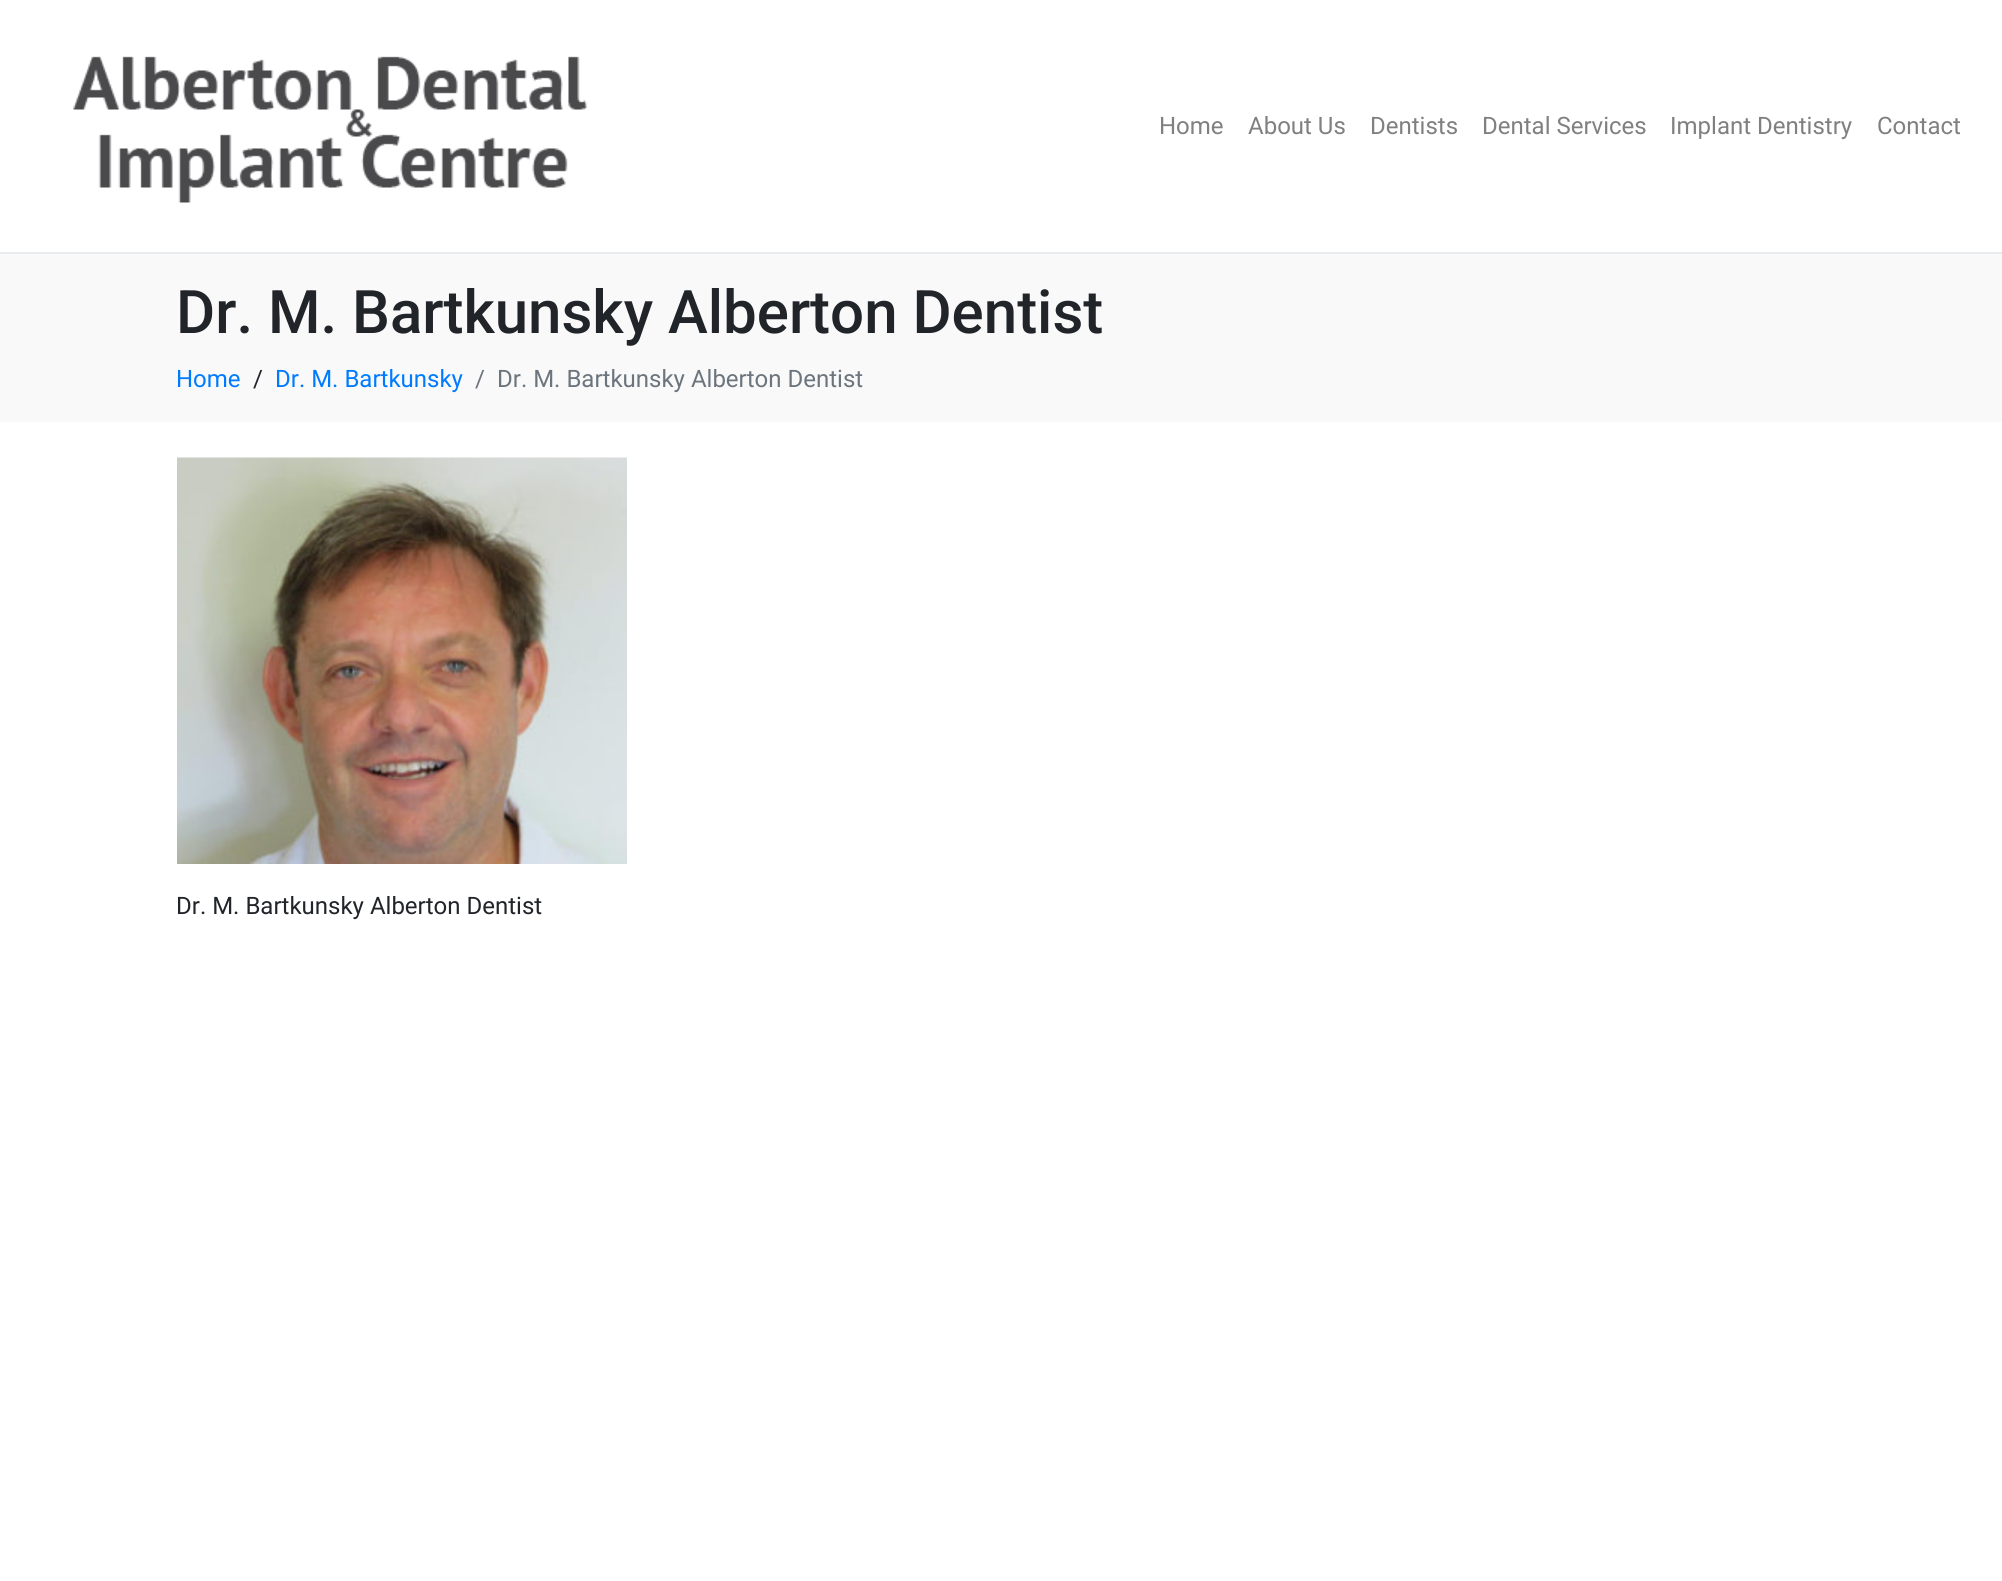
#include <cairo.h>
#include <math.h>
#include <stddef.h>


static void picture(cairo_t *cr, const char *path, double x, double y, double w, double h) {
    cairo_surface_t *image = cairo_image_surface_create_from_png(path);
    cairo_save(cr);
    cairo_set_source_surface(cr, image, x, y);
    cairo_rectangle(cr, x, y, w, h);
    cairo_fill(cr);
    cairo_restore(cr);
    cairo_surface_destroy(image);
}

int main(void) {
    cairo_surface_t *surface = cairo_image_surface_create(CAIRO_FORMAT_RGB24, 2002, 1581);
    cairo_t *cr = cairo_create(surface);
    cairo_font_options_t *options = cairo_font_options_create();
    cairo_font_options_set_hint_metrics(options, CAIRO_HINT_METRICS_OFF);
    cairo_font_options_set_hint_style(options, CAIRO_HINT_STYLE_NONE);
    cairo_set_font_options(cr, options);
    cairo_set_miter_limit(cr, 4);
    cairo_set_source_rgb(cr, 1, 1, 1);
    cairo_paint(cr);
    cairo_set_source_rgb(cr, 0.914, 0.925, 0.937);
    cairo_rectangle(cr, 0, 252, 2002, 2);
    cairo_fill(cr);
    picture(cr, "img1.png", 73, 56, 514, 147);
    cairo_select_font_face(cr, "Roboto", CAIRO_FONT_SLANT_NORMAL, CAIRO_FONT_WEIGHT_NORMAL);
    cairo_set_font_size(cr, 24);
    cairo_set_source_rgb(cr, 0.502, 0.502, 0.502);
    cairo_move_to(cr, 1159, 134);
    cairo_show_text(cr, "Home");
    cairo_move_to(cr, 1248, 134);
    cairo_show_text(cr, "About Us");
    cairo_move_to(cr, 1370, 134);
    cairo_show_text(cr, "Dentists");
    cairo_move_to(cr, 1482, 134);
    cairo_show_text(cr, "Dental Services");
    cairo_move_to(cr, 1670, 134);
    cairo_show_text(cr, "Implant Dentistry");
    cairo_move_to(cr, 1877, 134);
    cairo_show_text(cr, "Contact");
    cairo_set_source_rgb(cr, 0.973, 0.976, 0.98);
    cairo_rectangle(cr, 0, 254, 2002, 168);
    cairo_fill(cr);
    cairo_select_font_face(cr, "Roboto Medium", CAIRO_FONT_SLANT_NORMAL, CAIRO_FONT_WEIGHT_NORMAL);
    cairo_set_font_size(cr, 60);
    cairo_set_source_rgb(cr, 0.129, 0.145, 0.161);
    cairo_move_to(cr, 176, 333);
    cairo_show_text(cr, "Dr. M. Bartkunsky Alberton Dentist");
    cairo_select_font_face(cr, "Roboto", CAIRO_FONT_SLANT_NORMAL, CAIRO_FONT_WEIGHT_NORMAL);
    cairo_set_font_size(cr, 24);
    cairo_set_source_rgb(cr, 0, 0.482, 1);
    cairo_move_to(cr, 176, 387);
    cairo_show_text(cr, "Home");
    cairo_set_source_rgb(cr, 0.129, 0.145, 0.161);
    cairo_move_to(cr, 253, 387);
    cairo_show_text(cr, "/");
    cairo_set_source_rgb(cr, 0, 0.482, 1);
    cairo_move_to(cr, 275, 387);
    cairo_show_text(cr, "Dr. M. Bartkunsky");
    cairo_set_source_rgb(cr, 0.424, 0.459, 0.49);
    cairo_move_to(cr, 475, 387);
    cairo_show_text(cr, "/");
    cairo_move_to(cr, 497, 387);
    cairo_show_text(cr, "Dr. M. Bartkunsky Alberton Dentist");
    picture(cr, "img2.png", 177, 457, 450, 407);
    cairo_set_source_rgb(cr, 0.129, 0.145, 0.161);
    cairo_move_to(cr, 176, 914);
    cairo_show_text(cr, "Dr. M. Bartkunsky Alberton Dentist");
    cairo_surface_write_to_png(surface, "page.png");
    cairo_font_options_destroy(options);
    cairo_destroy(cr);
    cairo_surface_destroy(surface);
    return 0;
}
